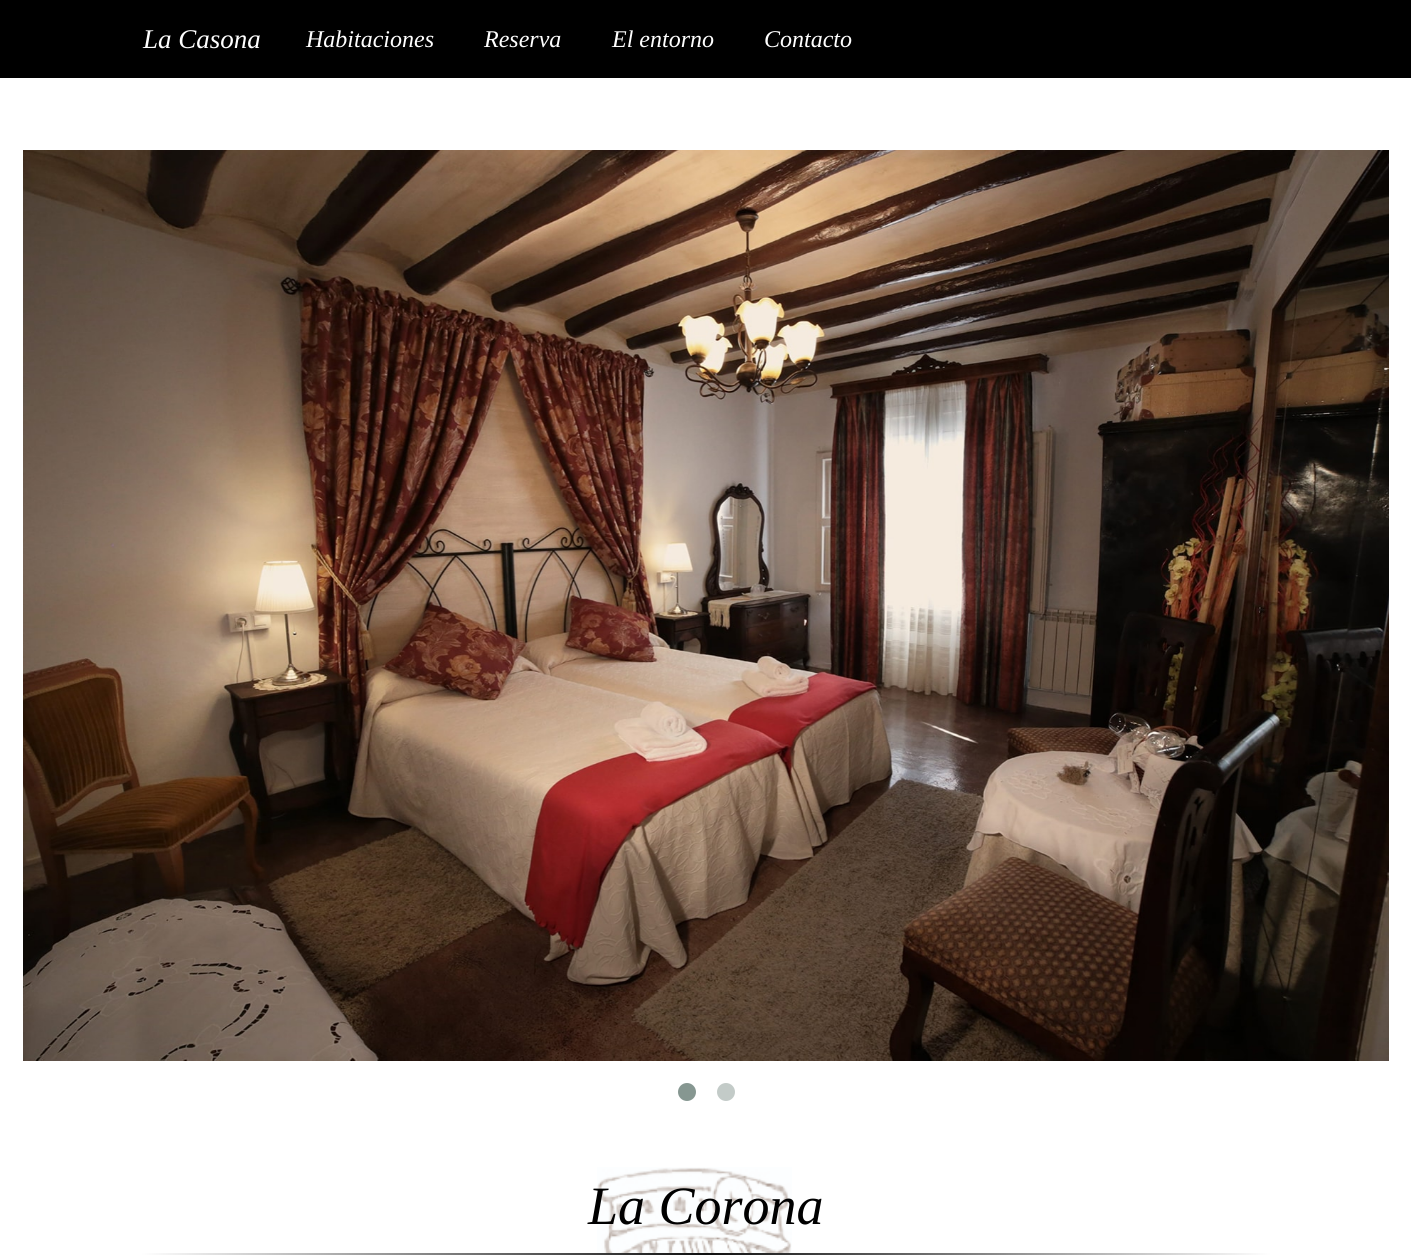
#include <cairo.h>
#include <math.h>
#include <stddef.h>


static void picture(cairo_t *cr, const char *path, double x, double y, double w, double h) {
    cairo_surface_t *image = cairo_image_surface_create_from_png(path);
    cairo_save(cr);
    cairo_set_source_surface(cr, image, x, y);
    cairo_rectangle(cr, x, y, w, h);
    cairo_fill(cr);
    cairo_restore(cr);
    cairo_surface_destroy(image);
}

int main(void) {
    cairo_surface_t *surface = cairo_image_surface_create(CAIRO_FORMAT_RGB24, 1411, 1255);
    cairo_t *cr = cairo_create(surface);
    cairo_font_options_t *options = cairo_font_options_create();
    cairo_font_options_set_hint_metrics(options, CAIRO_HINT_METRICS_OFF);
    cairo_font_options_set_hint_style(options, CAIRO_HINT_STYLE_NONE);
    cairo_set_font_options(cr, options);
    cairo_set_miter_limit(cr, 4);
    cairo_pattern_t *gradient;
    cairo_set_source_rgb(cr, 1, 1, 1);
    cairo_paint(cr);
    cairo_set_source_rgb(cr, 0, 0, 0);
    cairo_rectangle(cr, 0, 0, 1411, 78);
    cairo_fill(cr);
    cairo_select_font_face(cr, "Liberation Serif", CAIRO_FONT_SLANT_ITALIC, CAIRO_FONT_WEIGHT_NORMAL);
    cairo_set_font_size(cr, 27);
    cairo_set_source_rgb(cr, 1, 1, 1);
    cairo_move_to(cr, 143, 48);
    cairo_show_text(cr, "La Casona");
    cairo_set_font_size(cr, 24);
    cairo_move_to(cr, 306, 47);
    cairo_show_text(cr, "Habitaciones");
    cairo_move_to(cr, 484, 47);
    cairo_show_text(cr, "Reserva");
    cairo_move_to(cr, 612, 47);
    cairo_show_text(cr, "El entorno");
    cairo_move_to(cr, 764, 47);
    cairo_show_text(cr, "Contacto");
    picture(cr, "img1.png", 23, 150, 1366, 911);
    cairo_set_source_rgb(cr, 0.525, 0.592, 0.569);
    cairo_arc(cr, 687, 1092, 9, 0, 2 * M_PI);
    cairo_fill(cr);
    cairo_set_source_rgb(cr, 0.765, 0.796, 0.784);
    cairo_arc(cr, 726, 1092, 9, 0, 2 * M_PI);
    cairo_fill(cr);
    picture(cr, "img2.png", 597, 1167, 195, 86);
    cairo_set_font_size(cr, 54);
    cairo_set_source_rgb(cr, 0, 0, 0);
    cairo_move_to(cr, 588, 1224);
    cairo_show_text(cr, "La Corona");
    gradient = cairo_pattern_create_linear(141, 1253, 1271, 1253);
    cairo_pattern_add_color_stop_rgba(gradient, 0, 1, 1, 1, 1);
    cairo_pattern_add_color_stop_rgba(gradient, 0.5, 0.059, 0.059, 0.059, 1);
    cairo_pattern_add_color_stop_rgba(gradient, 1, 1, 1, 1, 1);
    cairo_set_source(cr, gradient);
    cairo_pattern_destroy(gradient);
    cairo_rectangle(cr, 141, 1253, 1130, 2);
    cairo_fill(cr);
    cairo_surface_write_to_png(surface, "page.png");
    cairo_font_options_destroy(options);
    cairo_destroy(cr);
    cairo_surface_destroy(surface);
    return 0;
}
